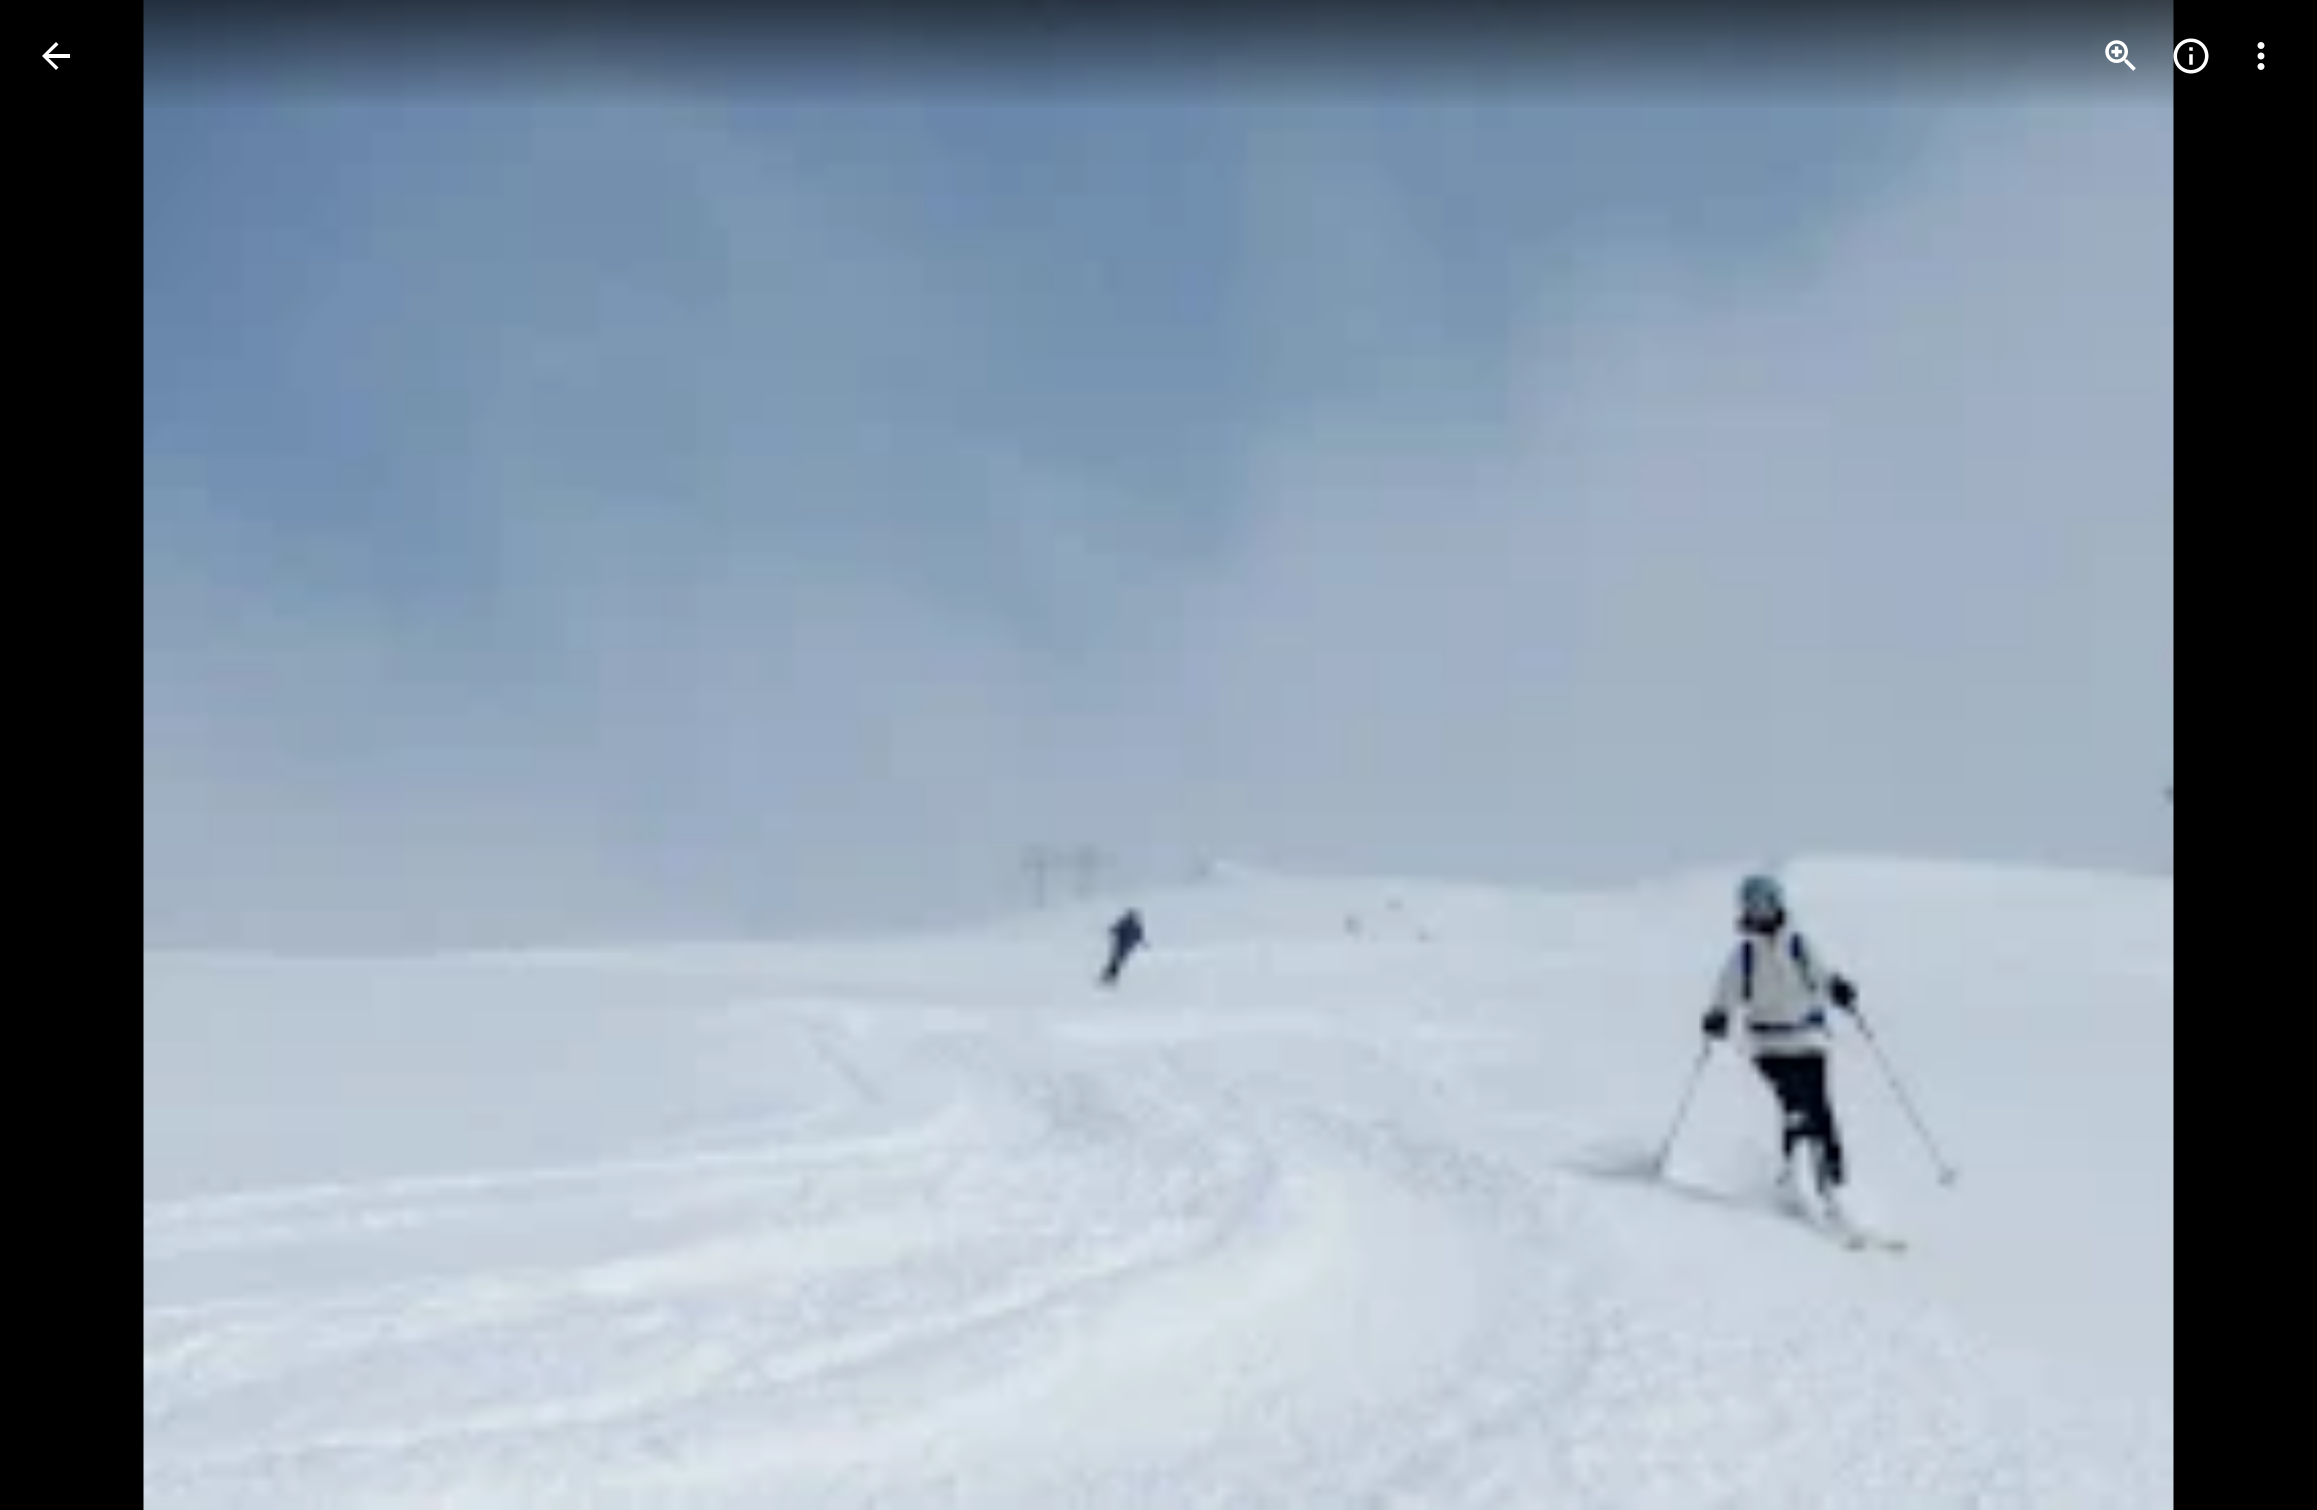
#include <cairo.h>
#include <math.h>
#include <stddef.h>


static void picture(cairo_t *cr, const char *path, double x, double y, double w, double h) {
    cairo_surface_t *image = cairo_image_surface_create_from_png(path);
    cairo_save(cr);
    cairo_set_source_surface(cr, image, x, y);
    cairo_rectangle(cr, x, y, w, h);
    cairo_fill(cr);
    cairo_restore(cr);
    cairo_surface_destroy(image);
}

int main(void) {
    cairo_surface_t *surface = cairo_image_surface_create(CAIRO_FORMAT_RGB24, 2317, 1510);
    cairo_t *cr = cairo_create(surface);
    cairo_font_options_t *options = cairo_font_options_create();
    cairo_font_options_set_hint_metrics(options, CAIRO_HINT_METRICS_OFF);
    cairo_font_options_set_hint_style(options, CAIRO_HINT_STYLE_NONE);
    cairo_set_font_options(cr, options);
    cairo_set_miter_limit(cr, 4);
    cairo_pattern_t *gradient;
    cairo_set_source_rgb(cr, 0, 0, 0);
    cairo_paint(cr);
    picture(cr, "img4.png", 143, 0, 2031, 1510);
    gradient = cairo_pattern_create_linear(1159, 0, 1159, 112);
    cairo_pattern_add_color_stop_rgba(gradient, 0, 0, 0, 0, 0.6);
    cairo_pattern_add_color_stop_rgba(gradient, 1, 0, 0, 0, 0);
    cairo_set_source(cr, gradient);
    cairo_pattern_destroy(gradient);
    cairo_rectangle(cr, 143, 0, 2031, 108);
    cairo_fill(cr);
    cairo_set_source_rgb(cr, 1, 1, 1);
    cairo_new_path(cr);
    cairo_move_to(cr, 70, 54);
    cairo_line_to(cr, 48.5, 54);
    cairo_line_to(cr, 58.5, 44.5);
    cairo_line_to(cr, 56, 42);
    cairo_line_to(cr, 42, 56);
    cairo_line_to(cr, 56, 70);
    cairo_line_to(cr, 58.5, 67.5);
    cairo_line_to(cr, 48.5, 58);
    cairo_line_to(cr, 70, 58);
    cairo_close_path(cr);
    cairo_fill(cr);
    picture(cr, "img1.png", 2105, 40, 31, 31);
    picture(cr, "img2.png", 2173, 38, 36, 36);
    picture(cr, "img3.png", 2257, 42, 8, 28);
    cairo_surface_write_to_png(surface, "page.png");
    cairo_font_options_destroy(options);
    cairo_destroy(cr);
    cairo_surface_destroy(surface);
    return 0;
}
